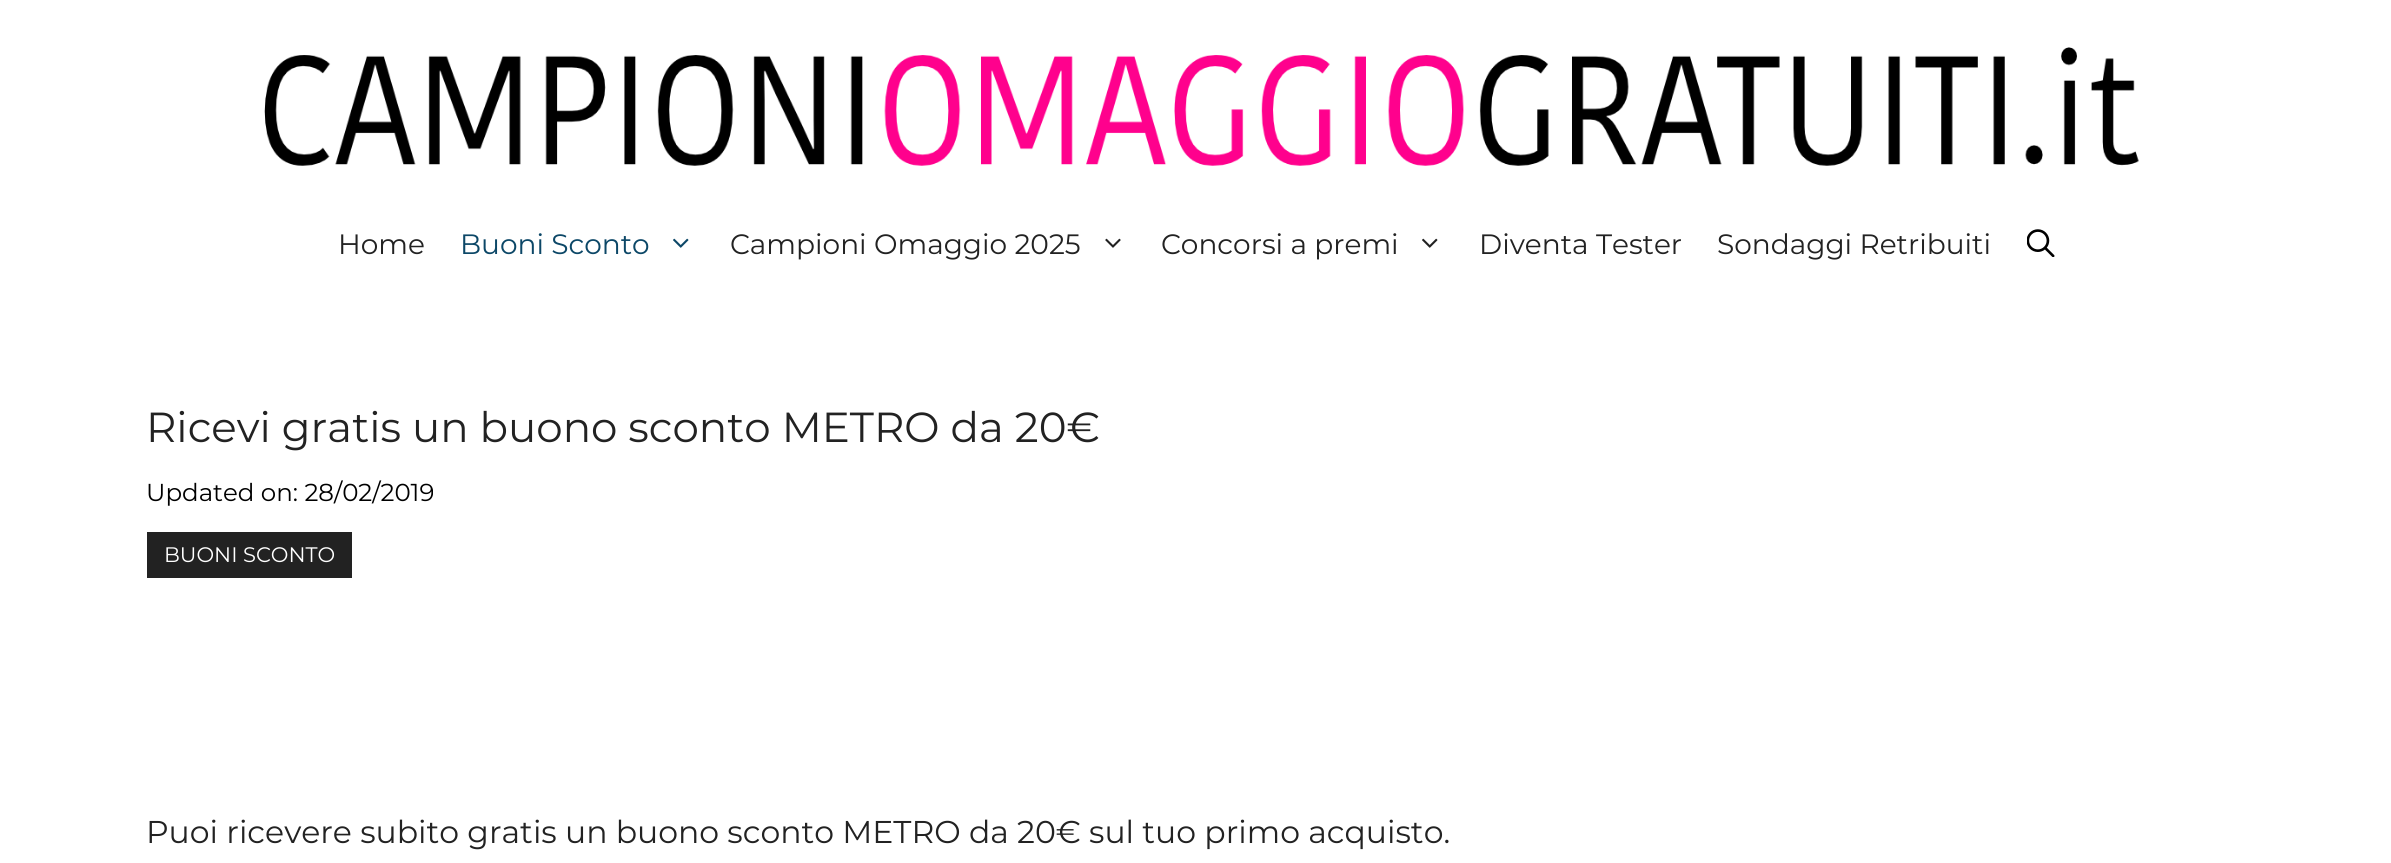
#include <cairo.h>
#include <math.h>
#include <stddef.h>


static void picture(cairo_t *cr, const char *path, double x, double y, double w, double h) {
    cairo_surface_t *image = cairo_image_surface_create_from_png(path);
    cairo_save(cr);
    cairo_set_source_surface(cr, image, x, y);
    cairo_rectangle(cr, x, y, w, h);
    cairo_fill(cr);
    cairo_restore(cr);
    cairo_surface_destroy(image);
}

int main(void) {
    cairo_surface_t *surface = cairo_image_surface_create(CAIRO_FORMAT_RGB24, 2391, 863);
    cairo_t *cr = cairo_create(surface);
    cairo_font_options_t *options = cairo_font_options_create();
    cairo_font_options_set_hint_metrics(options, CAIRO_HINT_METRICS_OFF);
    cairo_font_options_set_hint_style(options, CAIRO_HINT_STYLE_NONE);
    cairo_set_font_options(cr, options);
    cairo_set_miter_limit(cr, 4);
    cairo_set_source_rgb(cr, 1, 1, 1);
    cairo_paint(cr);
    picture(cr, "img1.png", 264, 47, 1875, 119);
    cairo_select_font_face(cr, "Montserrat", CAIRO_FONT_SLANT_NORMAL, CAIRO_FONT_WEIGHT_NORMAL);
    cairo_set_font_size(cr, 28);
    cairo_set_source_rgb(cr, 0.133, 0.133, 0.133);
    cairo_move_to(cr, 338, 254);
    cairo_show_text(cr, "Home");
    cairo_set_source_rgb(cr, 0.047, 0.278, 0.404);
    cairo_move_to(cr, 460, 254);
    cairo_show_text(cr, "Buoni Sconto");
    picture(cr, "img2.png", 673, 238, 16, 10);
    cairo_set_source_rgb(cr, 0.133, 0.133, 0.133);
    cairo_move_to(cr, 730, 254);
    cairo_show_text(cr, "Campioni Omaggio 2025");
    picture(cr, "img3.png", 1105, 238, 16, 10);
    cairo_move_to(cr, 1161, 254);
    cairo_show_text(cr, "Concorsi a premi");
    picture(cr, "img4.png", 1422, 238, 16, 10);
    cairo_move_to(cr, 1479, 254);
    cairo_show_text(cr, "Diventa Tester");
    cairo_move_to(cr, 1717, 254);
    cairo_show_text(cr, "Sondaggi Retribuiti");
    picture(cr, "img5.png", 2027, 229, 28, 28);
    cairo_set_font_size(cr, 42);
    cairo_move_to(cr, 146, 442);
    cairo_show_text(cr, "Ricevi gratis un buono sconto METRO da 20€");
    cairo_set_font_size(cr, 24.5);
    cairo_set_source_rgb(cr, 0, 0, 0);
    cairo_move_to(cr, 146, 501);
    cairo_show_text(cr, "Updated on: 28/02/2019");
    cairo_set_source_rgb(cr, 0.133, 0.133, 0.133);
    cairo_rectangle(cr, 147, 532, 205, 46);
    cairo_fill(cr);
    cairo_set_font_size(cr, 21);
    cairo_set_source_rgb(cr, 1, 1, 1);
    cairo_move_to(cr, 164, 562);
    cairo_show_text(cr, "BUONI SCONTO");
    cairo_set_font_size(cr, 31.5);
    cairo_set_source_rgb(cr, 0.133, 0.133, 0.133);
    cairo_move_to(cr, 146, 843);
    cairo_show_text(cr, "Puoi ricevere subito gratis un buono sconto METRO da 20€ sul tuo primo acquisto.");
    cairo_surface_write_to_png(surface, "page.png");
    cairo_font_options_destroy(options);
    cairo_destroy(cr);
    cairo_surface_destroy(surface);
    return 0;
}
